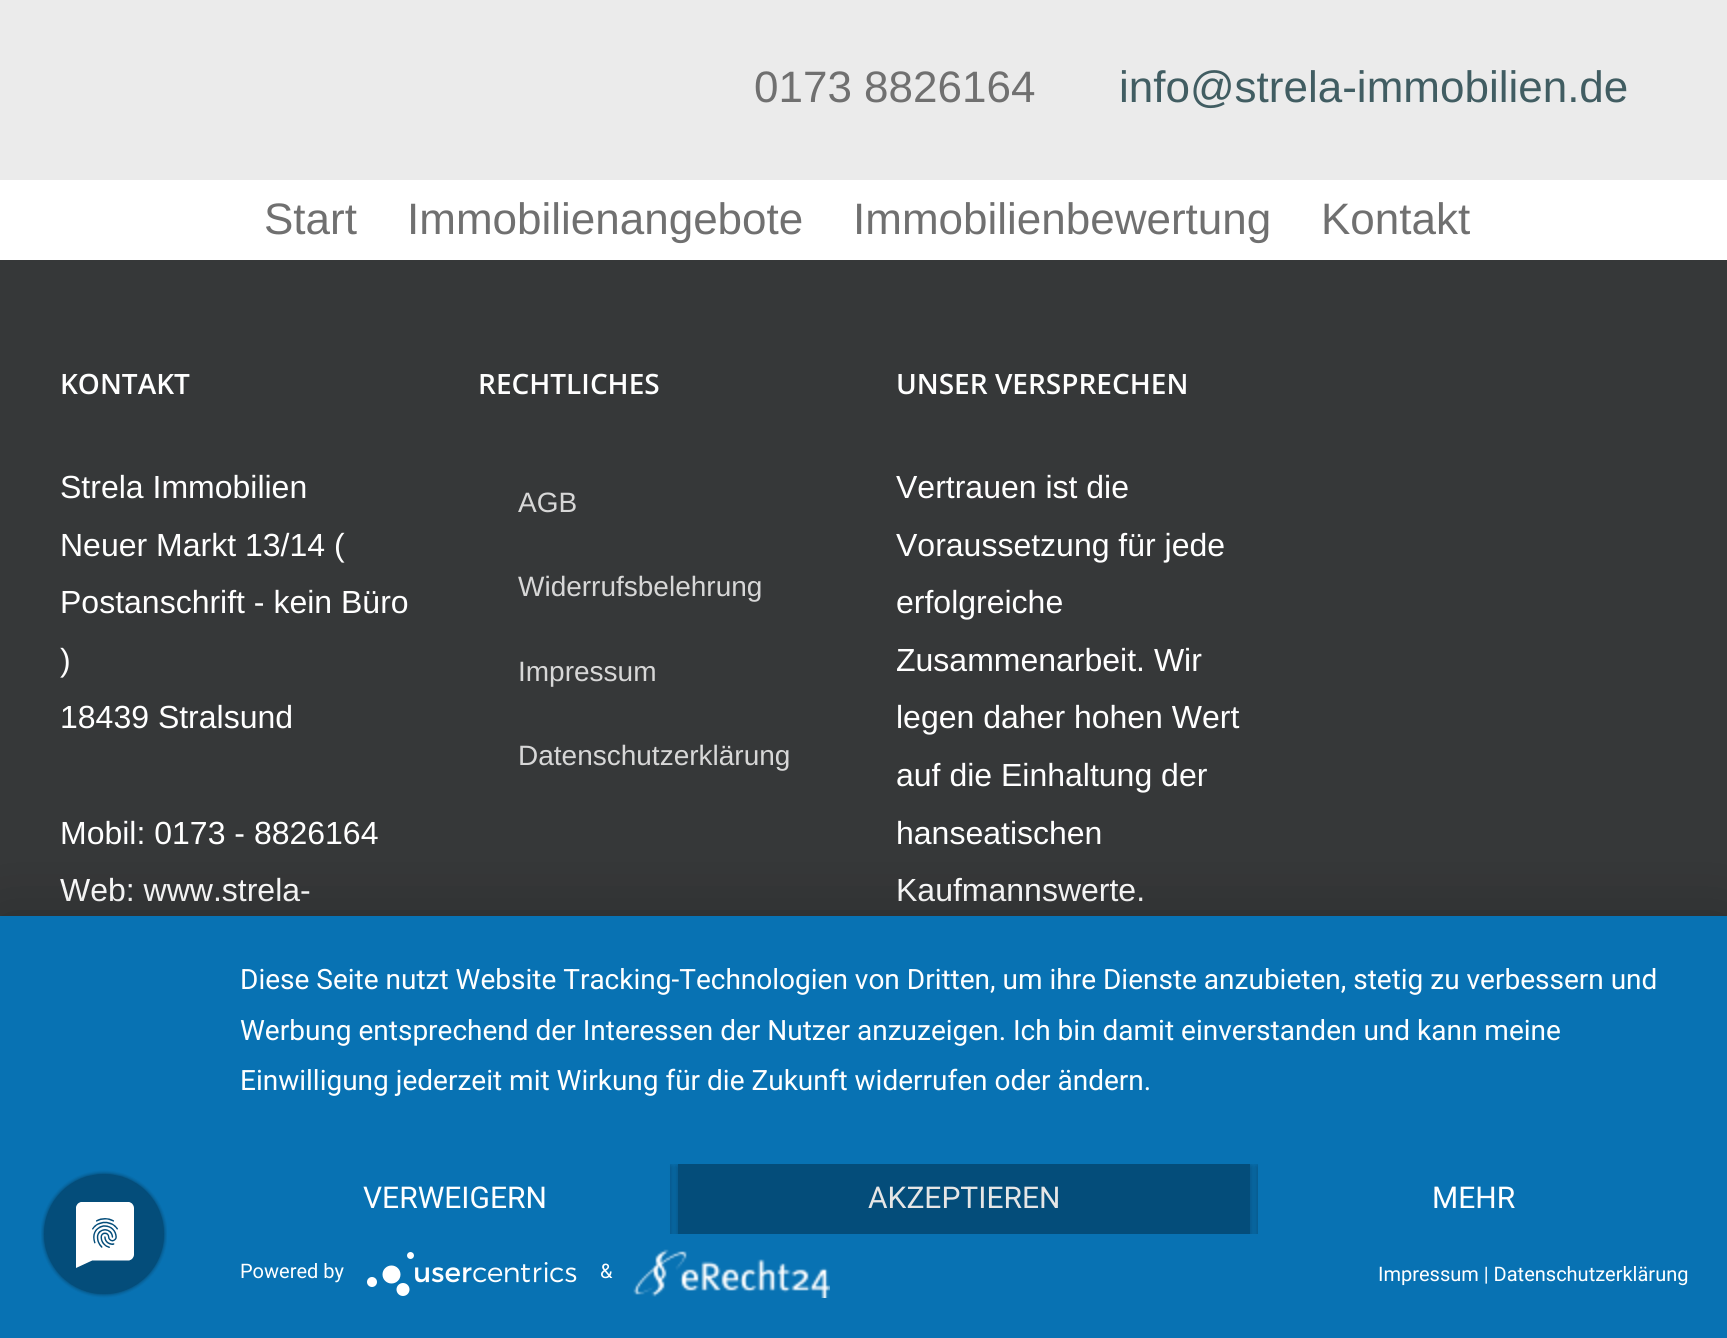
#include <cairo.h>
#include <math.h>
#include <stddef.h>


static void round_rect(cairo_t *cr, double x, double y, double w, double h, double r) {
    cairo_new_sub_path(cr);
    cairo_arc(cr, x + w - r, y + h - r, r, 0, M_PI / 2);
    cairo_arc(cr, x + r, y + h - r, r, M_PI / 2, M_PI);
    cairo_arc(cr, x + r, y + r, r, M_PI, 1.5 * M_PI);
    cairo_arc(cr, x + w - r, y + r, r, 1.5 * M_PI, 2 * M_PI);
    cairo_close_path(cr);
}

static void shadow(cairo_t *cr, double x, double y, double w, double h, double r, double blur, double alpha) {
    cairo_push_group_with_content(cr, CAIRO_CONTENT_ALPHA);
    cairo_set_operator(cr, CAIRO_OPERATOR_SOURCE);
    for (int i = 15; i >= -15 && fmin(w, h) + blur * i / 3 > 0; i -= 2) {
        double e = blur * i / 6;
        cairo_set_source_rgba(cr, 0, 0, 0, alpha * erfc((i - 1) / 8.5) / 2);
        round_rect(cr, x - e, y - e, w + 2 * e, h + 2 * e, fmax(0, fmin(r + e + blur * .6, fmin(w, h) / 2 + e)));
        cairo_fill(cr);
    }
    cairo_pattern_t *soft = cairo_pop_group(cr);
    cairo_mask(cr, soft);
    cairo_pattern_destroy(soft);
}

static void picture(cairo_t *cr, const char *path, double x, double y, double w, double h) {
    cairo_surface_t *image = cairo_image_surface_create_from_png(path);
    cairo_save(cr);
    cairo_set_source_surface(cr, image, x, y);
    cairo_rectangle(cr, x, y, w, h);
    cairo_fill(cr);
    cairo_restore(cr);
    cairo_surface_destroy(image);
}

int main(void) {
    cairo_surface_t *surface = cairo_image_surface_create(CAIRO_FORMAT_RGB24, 1727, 1338);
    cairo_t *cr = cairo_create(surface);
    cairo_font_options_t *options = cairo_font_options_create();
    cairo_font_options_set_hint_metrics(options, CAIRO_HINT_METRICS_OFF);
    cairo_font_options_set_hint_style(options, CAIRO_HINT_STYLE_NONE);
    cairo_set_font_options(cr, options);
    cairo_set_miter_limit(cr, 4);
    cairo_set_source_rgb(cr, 0.212, 0.22, 0.224);
    cairo_paint(cr);
    cairo_set_source_rgb(cr, 0.918, 0.918, 0.918);
    cairo_rectangle(cr, 0, 0, 1727, 180);
    cairo_fill(cr);
    cairo_select_font_face(cr, "Liberation Sans", CAIRO_FONT_SLANT_NORMAL, CAIRO_FONT_WEIGHT_NORMAL);
    cairo_set_font_size(cr, 44);
    cairo_set_source_rgb(cr, 0.439, 0.439, 0.439);
    cairo_move_to(cr, 754, 102);
    cairo_show_text(cr, "0173 8826164");
    cairo_set_source_rgb(cr, 0.255, 0.365, 0.384);
    cairo_move_to(cr, 1119, 102);
    cairo_show_text(cr, "info@strela-immobilien.de");
    cairo_set_source_rgb(cr, 1, 1, 1);
    cairo_rectangle(cr, 0, 180, 1727, 80);
    cairo_fill(cr);
    cairo_set_source_rgb(cr, 0.439, 0.439, 0.439);
    cairo_move_to(cr, 264, 234);
    cairo_show_text(cr, "Start");
    cairo_move_to(cr, 407, 234);
    cairo_show_text(cr, "Immobilienangebote");
    cairo_move_to(cr, 853, 234);
    cairo_show_text(cr, "Immobilienbewertung");
    cairo_move_to(cr, 1321, 234);
    cairo_show_text(cr, "Kontakt");
    cairo_select_font_face(cr, "Open Sans SemiBold", CAIRO_FONT_SLANT_NORMAL, CAIRO_FONT_WEIGHT_NORMAL);
    cairo_set_font_size(cr, 28);
    cairo_set_source_rgb(cr, 1, 1, 1);
    cairo_move_to(cr, 60, 394);
    cairo_show_text(cr, "KONTAKT");
    cairo_select_font_face(cr, "Liberation Sans", CAIRO_FONT_SLANT_NORMAL, CAIRO_FONT_WEIGHT_NORMAL);
    cairo_set_font_size(cr, 32);
    cairo_move_to(cr, 60, 498);
    cairo_show_text(cr, "Strela Immobilien");
    cairo_move_to(cr, 60, 556);
    cairo_show_text(cr, "Neuer Markt 13/14 (");
    cairo_move_to(cr, 60, 613);
    cairo_show_text(cr, "Postanschrift - kein Büro");
    cairo_move_to(cr, 60, 671);
    cairo_show_text(cr, ")");
    cairo_move_to(cr, 60, 728);
    cairo_show_text(cr, "18439 Stralsund");
    cairo_move_to(cr, 60, 844);
    cairo_show_text(cr, "Mobil: 0173 - 8826164");
    cairo_move_to(cr, 60, 901);
    cairo_show_text(cr, "Web: www.strela-");
    cairo_select_font_face(cr, "Open Sans SemiBold", CAIRO_FONT_SLANT_NORMAL, CAIRO_FONT_WEIGHT_NORMAL);
    cairo_set_font_size(cr, 28);
    cairo_move_to(cr, 478, 394);
    cairo_show_text(cr, "RECHTLICHES");
    cairo_select_font_face(cr, "Liberation Sans", CAIRO_FONT_SLANT_NORMAL, CAIRO_FONT_WEIGHT_NORMAL);
    cairo_set_source_rgb(cr, 0.843, 0.843, 0.843);
    cairo_move_to(cr, 518, 512);
    cairo_show_text(cr, "AGB");
    cairo_move_to(cr, 518, 596);
    cairo_show_text(cr, "Widerrufsbelehrung");
    cairo_move_to(cr, 518, 681);
    cairo_show_text(cr, "Impressum");
    cairo_move_to(cr, 518, 765);
    cairo_show_text(cr, "Datenschutzerklärung");
    cairo_select_font_face(cr, "Open Sans SemiBold", CAIRO_FONT_SLANT_NORMAL, CAIRO_FONT_WEIGHT_NORMAL);
    cairo_set_source_rgb(cr, 1, 1, 1);
    cairo_move_to(cr, 896, 394);
    cairo_show_text(cr, "UNSER VERSPRECHEN");
    cairo_select_font_face(cr, "Liberation Sans", CAIRO_FONT_SLANT_NORMAL, CAIRO_FONT_WEIGHT_NORMAL);
    cairo_set_font_size(cr, 32);
    cairo_move_to(cr, 896, 498);
    cairo_show_text(cr, "Vertrauen ist die");
    cairo_move_to(cr, 896, 556);
    cairo_show_text(cr, "Voraussetzung für jede");
    cairo_move_to(cr, 896, 613);
    cairo_show_text(cr, "erfolgreiche");
    cairo_move_to(cr, 896, 671);
    cairo_show_text(cr, "Zusammenarbeit. Wir");
    cairo_move_to(cr, 896, 728);
    cairo_show_text(cr, "legen daher hohen Wert");
    cairo_move_to(cr, 896, 786);
    cairo_show_text(cr, "auf die Einhaltung der");
    cairo_move_to(cr, 896, 844);
    cairo_show_text(cr, "hanseatischen");
    cairo_move_to(cr, 896, 901);
    cairo_show_text(cr, "Kaufmannswerte.");
    cairo_set_source_rgb(cr, 0, 0, 0);
    shadow(cr, 0, 928, 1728, 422, 0, 36, 0.3);
    cairo_set_source_rgb(cr, 0.035, 0.447, 0.702);
    cairo_rectangle(cr, 0, 916, 1727, 422);
    cairo_fill(cr);
    picture(cr, "img1.png", 41, 1170, 126, 128);
    cairo_select_font_face(cr, "Roboto", CAIRO_FONT_SLANT_NORMAL, CAIRO_FONT_WEIGHT_NORMAL);
    cairo_set_font_size(cr, 28);
    cairo_set_source_rgb(cr, 1, 1, 1);
    cairo_move_to(cr, 240, 989);
    cairo_show_text(cr, "Diese Seite nutzt Website Tracking-Technologien von Dritten, um ihre Dienste anzubieten, stetig zu verbessern und");
    cairo_move_to(cr, 240, 1040);
    cairo_show_text(cr, "Werbung entsprechend der Interessen der Nutzer anzuzeigen. Ich bin damit einverstanden und kann meine");
    cairo_move_to(cr, 240, 1090);
    cairo_show_text(cr, "Einwilligung jederzeit mit Wirkung für die Zukunft widerrufen oder ändern.");
    cairo_save(cr);
    cairo_rectangle(cr, 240, 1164, 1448, 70);
    cairo_clip(cr);
    cairo_rectangle(cr, 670, 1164, 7, 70);
    cairo_clip(cr);
    cairo_set_source_rgb(cr, 0, 0, 0);
    shadow(cr, 240, 1166, 430, 70, 0, 4, 0.4);
    cairo_restore(cr);
    cairo_set_font_size(cr, 30);
    cairo_move_to(cr, 363, 1208);
    cairo_show_text(cr, "VERWEIGERN");
    cairo_save(cr);
    cairo_rectangle(cr, 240, 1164, 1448, 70);
    cairo_clip(cr);
    cairo_set_source_rgb(cr, 0, 0, 0);
    shadow(cr, 678, 1166, 572, 70, 0, 4, 0.4);
    cairo_restore(cr);
    cairo_set_source_rgb(cr, 0.016, 0.302, 0.478);
    cairo_rectangle(cr, 678, 1164, 572, 70);
    cairo_fill(cr);
    cairo_set_source_rgb(cr, 0.902, 0.902, 0.902);
    cairo_move_to(cr, 868, 1208);
    cairo_show_text(cr, "AKZEPTIEREN");
    cairo_save(cr);
    cairo_rectangle(cr, 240, 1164, 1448, 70);
    cairo_clip(cr);
    cairo_rectangle(cr, 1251, 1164, 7, 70);
    cairo_clip(cr);
    cairo_set_source_rgb(cr, 0, 0, 0);
    shadow(cr, 1258, 1166, 430, 70, 0, 4, 0.4);
    cairo_restore(cr);
    cairo_set_source_rgb(cr, 1, 1, 1);
    cairo_move_to(cr, 1432, 1208);
    cairo_show_text(cr, "MEHR");
    cairo_set_font_size(cr, 20);
    cairo_move_to(cr, 240, 1278);
    cairo_show_text(cr, "Powered by");
    picture(cr, "img2.png", 367, 1252, 210, 44);
    cairo_move_to(cr, 600, 1278);
    cairo_show_text(cr, "&");
    picture(cr, "img3.png", 633, 1249, 197, 49);
    cairo_move_to(cr, 1378, 1281);
    cairo_show_text(cr, "Impressum | Datenschutzerklärung");
    cairo_surface_write_to_png(surface, "page.png");
    cairo_font_options_destroy(options);
    cairo_destroy(cr);
    cairo_surface_destroy(surface);
    return 0;
}
